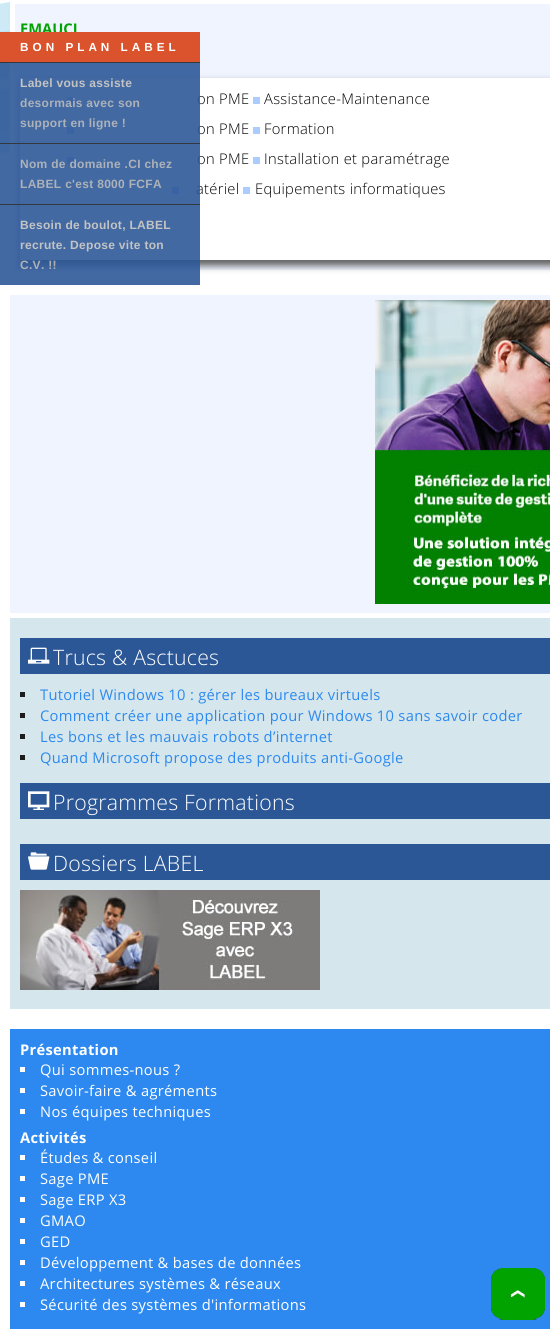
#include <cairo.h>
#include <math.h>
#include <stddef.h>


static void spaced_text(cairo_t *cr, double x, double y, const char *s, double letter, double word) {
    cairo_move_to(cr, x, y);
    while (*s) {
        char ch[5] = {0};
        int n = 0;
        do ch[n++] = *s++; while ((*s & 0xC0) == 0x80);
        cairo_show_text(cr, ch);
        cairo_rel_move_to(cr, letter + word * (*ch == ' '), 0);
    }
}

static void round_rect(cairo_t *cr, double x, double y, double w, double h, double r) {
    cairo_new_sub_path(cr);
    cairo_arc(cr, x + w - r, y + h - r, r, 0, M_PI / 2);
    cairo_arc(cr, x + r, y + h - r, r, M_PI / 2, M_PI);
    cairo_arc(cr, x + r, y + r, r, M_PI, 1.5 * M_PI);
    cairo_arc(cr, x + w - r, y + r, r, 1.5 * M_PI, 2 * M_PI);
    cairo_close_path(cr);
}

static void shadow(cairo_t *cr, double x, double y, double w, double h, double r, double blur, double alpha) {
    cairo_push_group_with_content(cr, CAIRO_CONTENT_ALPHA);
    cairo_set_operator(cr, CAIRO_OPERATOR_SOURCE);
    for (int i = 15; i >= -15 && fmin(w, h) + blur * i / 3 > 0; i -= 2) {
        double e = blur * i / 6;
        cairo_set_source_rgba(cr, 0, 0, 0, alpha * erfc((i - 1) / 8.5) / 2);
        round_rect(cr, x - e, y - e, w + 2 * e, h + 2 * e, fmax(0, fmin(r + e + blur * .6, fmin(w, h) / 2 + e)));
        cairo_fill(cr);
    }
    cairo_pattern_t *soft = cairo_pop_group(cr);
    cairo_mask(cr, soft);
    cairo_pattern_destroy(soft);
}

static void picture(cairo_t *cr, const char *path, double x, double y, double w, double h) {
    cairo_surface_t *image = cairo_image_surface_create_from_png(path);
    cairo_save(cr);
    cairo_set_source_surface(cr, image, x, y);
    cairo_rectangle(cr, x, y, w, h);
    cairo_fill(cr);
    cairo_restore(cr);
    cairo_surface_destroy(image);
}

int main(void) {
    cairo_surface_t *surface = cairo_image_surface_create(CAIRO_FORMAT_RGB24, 550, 1329);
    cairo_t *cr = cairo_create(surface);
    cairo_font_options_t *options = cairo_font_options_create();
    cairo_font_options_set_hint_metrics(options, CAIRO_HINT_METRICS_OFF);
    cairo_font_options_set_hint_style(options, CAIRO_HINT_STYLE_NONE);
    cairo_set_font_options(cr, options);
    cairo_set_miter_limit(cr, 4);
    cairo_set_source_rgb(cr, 1, 1, 1);
    cairo_paint(cr);
    picture(cr, "img1.png", 0, 2, 10, 152);
    cairo_set_source_rgb(cr, 0.937, 0.957, 1);
    cairo_rectangle(cr, 15, 4, 535, 266);
    cairo_fill(cr);
    cairo_select_font_face(cr, "Open Sans", CAIRO_FONT_SLANT_NORMAL, CAIRO_FONT_WEIGHT_BOLD);
    cairo_set_font_size(cr, 14.7);
    cairo_set_source_rgb(cr, 0, 0.639, 0);
    cairo_move_to(cr, 20, 34);
    cairo_show_text(cr, "EMAUCI");
    cairo_set_source_rgb(cr, 0.396, 0.396, 0.396);
    shadow(cr, 21, 82, 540, 184, 0, 3.5, 1);
    cairo_set_source_rgb(cr, 1, 1, 1);
    cairo_rectangle(cr, 20, 78, 530, 182);
    cairo_fill(cr);
    cairo_set_source_rgb(cr, 0.667, 0.8, 1);
    cairo_rectangle(cr, 67, 97, 7, 7);
    cairo_fill(cr);
    cairo_select_font_face(cr, "Open Sans Light", CAIRO_FONT_SLANT_NORMAL, CAIRO_FONT_WEIGHT_NORMAL);
    cairo_set_source_rgb(cr, 0, 0, 0);
    spaced_text(cr, 197, 104, "on PME", 0.3, 0);
    cairo_set_source_rgb(cr, 0.667, 0.8, 1);
    cairo_rectangle(cr, 253, 97, 7, 7);
    cairo_fill(cr);
    cairo_set_source_rgb(cr, 0, 0, 0);
    spaced_text(cr, 264, 104, "Assistance-Maintenance", 0.3, 0);
    cairo_set_source_rgb(cr, 0.667, 0.8, 1);
    cairo_rectangle(cr, 67, 127, 7, 7);
    cairo_fill(cr);
    cairo_set_source_rgb(cr, 0, 0, 0);
    spaced_text(cr, 197, 134, "on PME", 0.3, 0);
    cairo_set_source_rgb(cr, 0.667, 0.8, 1);
    cairo_rectangle(cr, 253, 127, 7, 7);
    cairo_fill(cr);
    cairo_set_source_rgb(cr, 0, 0, 0);
    spaced_text(cr, 264, 134, "Formation", 0.3, 0);
    cairo_set_source_rgb(cr, 0.667, 0.8, 1);
    cairo_rectangle(cr, 67, 157, 7, 7);
    cairo_fill(cr);
    cairo_set_source_rgb(cr, 0, 0, 0);
    spaced_text(cr, 197, 164, "on PME", 0.3, 0);
    cairo_set_source_rgb(cr, 0.667, 0.8, 1);
    cairo_rectangle(cr, 253, 157, 7, 7);
    cairo_fill(cr);
    cairo_set_source_rgb(cr, 0, 0, 0);
    spaced_text(cr, 264, 164, "Installation et paramétrage", 0.3, 0);
    cairo_set_source_rgb(cr, 0.667, 0.8, 1);
    cairo_rectangle(cr, 172, 187, 7, 7);
    cairo_fill(cr);
    cairo_set_source_rgb(cr, 0, 0, 0);
    spaced_text(cr, 196, 194, "atériel", 0.3, 0);
    cairo_set_source_rgb(cr, 0.667, 0.8, 1);
    cairo_rectangle(cr, 243, 187, 7, 7);
    cairo_fill(cr);
    cairo_set_source_rgb(cr, 0, 0, 0);
    spaced_text(cr, 255, 194, "Equipements informatiques", 0.3, 0);
    cairo_set_source_rgb(cr, 0.937, 0.957, 1);
    cairo_rectangle(cr, 10, 295, 540, 318);
    cairo_fill(cr);
    picture(cr, "img2.png", 375, 300, 175, 304);
    cairo_set_source_rgb(cr, 0.835, 0.906, 0.925);
    cairo_rectangle(cr, 10, 618, 540, 391);
    cairo_fill(cr);
    cairo_set_source_rgb(cr, 0.169, 0.341, 0.592);
    cairo_rectangle(cr, 20, 638, 530, 36);
    cairo_fill(cr);
    picture(cr, "img3.png", 28, 647, 22, 17);
    cairo_set_font_size(cr, 21.25);
    cairo_set_source_rgb(cr, 1, 1, 1);
    spaced_text(cr, 53, 665, "Trucs & Asctuces", 0.25, 0);
    cairo_set_source_rgb(cr, 0.114, 0.114, 0.114);
    cairo_rectangle(cr, 20, 692, 5, 5);
    cairo_fill(cr);
    cairo_select_font_face(cr, "Open Sans", CAIRO_FONT_SLANT_NORMAL, CAIRO_FONT_WEIGHT_NORMAL);
    cairo_set_font_size(cr, 14.7);
    cairo_set_source_rgb(cr, 0.176, 0.537, 0.937);
    spaced_text(cr, 40, 700, "Tutoriel Windows 10 : gérer les bureaux virtuels", 0.3, 0);
    cairo_set_source_rgb(cr, 0.114, 0.114, 0.114);
    cairo_rectangle(cr, 20, 713, 5, 5);
    cairo_fill(cr);
    cairo_set_source_rgb(cr, 0.176, 0.537, 0.937);
    spaced_text(cr, 40, 721, "Comment créer une application pour Windows 10 sans savoir coder", 0.3, 0);
    cairo_set_source_rgb(cr, 0.114, 0.114, 0.114);
    cairo_rectangle(cr, 20, 734, 5, 5);
    cairo_fill(cr);
    cairo_set_source_rgb(cr, 0.176, 0.537, 0.937);
    spaced_text(cr, 40, 742, "Les bons et les mauvais robots d’internet", 0.3, 0);
    cairo_set_source_rgb(cr, 0.114, 0.114, 0.114);
    cairo_rectangle(cr, 20, 755, 5, 5);
    cairo_fill(cr);
    cairo_set_source_rgb(cr, 0.176, 0.537, 0.937);
    spaced_text(cr, 40, 763, "Quand Microsoft propose des produits anti-Google", 0.3, 0);
    cairo_set_source_rgb(cr, 0.169, 0.341, 0.592);
    cairo_rectangle(cr, 20, 783, 530, 36);
    cairo_fill(cr);
    picture(cr, "img4.png", 28, 791, 22, 19);
    cairo_select_font_face(cr, "Open Sans Light", CAIRO_FONT_SLANT_NORMAL, CAIRO_FONT_WEIGHT_NORMAL);
    cairo_set_font_size(cr, 21.25);
    cairo_set_source_rgb(cr, 1, 1, 1);
    spaced_text(cr, 53, 810, "Programmes Formations", 0.25, 0);
    cairo_set_source_rgb(cr, 0.169, 0.341, 0.592);
    cairo_rectangle(cr, 20, 844, 530, 36);
    cairo_fill(cr);
    picture(cr, "img5.png", 28, 852, 22, 18);
    cairo_set_source_rgb(cr, 1, 1, 1);
    spaced_text(cr, 53, 871, "Dossiers LABEL", 0.25, 0);
    picture(cr, "img6.png", 20, 890, 300, 100);
    cairo_set_source_rgb(cr, 0.176, 0.537, 0.937);
    cairo_rectangle(cr, 10, 1029, 540, 300);
    cairo_fill(cr);
    cairo_select_font_face(cr, "Open Sans", CAIRO_FONT_SLANT_NORMAL, CAIRO_FONT_WEIGHT_BOLD);
    cairo_set_font_size(cr, 14.7);
    cairo_set_source_rgb(cr, 1, 1, 1);
    spaced_text(cr, 20, 1055, "Présentation", 0.3, 0);
    cairo_rectangle(cr, 20, 1067, 5, 5);
    cairo_fill(cr);
    cairo_select_font_face(cr, "Open Sans", CAIRO_FONT_SLANT_NORMAL, CAIRO_FONT_WEIGHT_NORMAL);
    spaced_text(cr, 40, 1075, "Qui sommes-nous ?", 0.3, 0);
    cairo_rectangle(cr, 20, 1088, 5, 5);
    cairo_fill(cr);
    spaced_text(cr, 40, 1096, "Savoir-faire & agréments", 0.3, 0);
    cairo_rectangle(cr, 20, 1109, 5, 5);
    cairo_fill(cr);
    spaced_text(cr, 40, 1117, "Nos équipes techniques", 0.3, 0);
    cairo_select_font_face(cr, "Open Sans", CAIRO_FONT_SLANT_NORMAL, CAIRO_FONT_WEIGHT_BOLD);
    spaced_text(cr, 20, 1143, "Activités", 0.3, 0);
    cairo_rectangle(cr, 20, 1155, 5, 5);
    cairo_fill(cr);
    cairo_select_font_face(cr, "Open Sans", CAIRO_FONT_SLANT_NORMAL, CAIRO_FONT_WEIGHT_NORMAL);
    spaced_text(cr, 40, 1163, "Études & conseil", 0.3, 0);
    cairo_rectangle(cr, 20, 1176, 5, 5);
    cairo_fill(cr);
    spaced_text(cr, 40, 1184, "Sage PME", 0.3, 0);
    cairo_rectangle(cr, 20, 1197, 5, 5);
    cairo_fill(cr);
    spaced_text(cr, 40, 1205, "Sage ERP X3", 0.3, 0);
    cairo_rectangle(cr, 20, 1218, 5, 5);
    cairo_fill(cr);
    spaced_text(cr, 40, 1226, "GMAO", 0.3, 0);
    cairo_rectangle(cr, 20, 1239, 5, 5);
    cairo_fill(cr);
    spaced_text(cr, 40, 1247, "GED", 0.3, 0);
    cairo_rectangle(cr, 20, 1260, 5, 5);
    cairo_fill(cr);
    spaced_text(cr, 40, 1268, "Développement & bases de données", 0.3, 0);
    cairo_rectangle(cr, 20, 1281, 5, 5);
    cairo_fill(cr);
    spaced_text(cr, 40, 1289, "Architectures systèmes & réseaux", 0.3, 0);
    cairo_rectangle(cr, 20, 1302, 5, 5);
    cairo_fill(cr);
    spaced_text(cr, 40, 1310, "Sécurité des systèmes d'informations", 0.3, 0);
    cairo_set_source_rgb(cr, 0.855, 0.325, 0.173);
    cairo_rectangle(cr, 0, 32, 200, 30);
    cairo_fill(cr);
    cairo_select_font_face(cr, "Liberation Sans", CAIRO_FONT_SLANT_NORMAL, CAIRO_FONT_WEIGHT_BOLD);
    cairo_set_font_size(cr, 11.75);
    cairo_set_source_rgb(cr, 1, 1, 1);
    spaced_text(cr, 20, 51, "BON PLAN LABEL", 4, 0);
    cairo_set_source_rgba(cr, 0.169, 0.341, 0.592, 0.89);
    cairo_rectangle(cr, 0, 62, 200, 81);
    cairo_fill(cr);
    cairo_set_source_rgba(cr, 0.2, 0.2, 0.2, 0.89);
    cairo_rectangle(cr, 0, 62, 200, 1);
    cairo_fill(cr);
    cairo_set_font_size(cr, 12);
    cairo_set_source_rgb(cr, 0.765, 0.765, 0.765);
    spaced_text(cr, 20, 87, "Label vous assiste", 0.3, 0);
    cairo_set_source_rgb(cr, 0.678, 0.694, 0.722);
    spaced_text(cr, 20, 107, "desormais avec son", 0.3, 0);
    spaced_text(cr, 20, 127, "support en ligne !", 0.3, 0);
    cairo_set_source_rgba(cr, 0.169, 0.341, 0.592, 0.89);
    cairo_rectangle(cr, 0, 143, 200, 61);
    cairo_fill(cr);
    cairo_set_source_rgba(cr, 0.2, 0.2, 0.2, 0.89);
    cairo_rectangle(cr, 0, 143, 200, 1);
    cairo_fill(cr);
    cairo_set_source_rgb(cr, 0.678, 0.694, 0.722);
    spaced_text(cr, 20, 168, "Nom de domaine .CI chez", 0.3, 0);
    spaced_text(cr, 20, 188, "LABEL c'est 8000 FCFA", 0.3, 0);
    cairo_set_source_rgba(cr, 0.169, 0.341, 0.592, 0.89);
    cairo_rectangle(cr, 0, 204, 200, 81);
    cairo_fill(cr);
    cairo_set_source_rgba(cr, 0.2, 0.2, 0.2, 0.89);
    cairo_rectangle(cr, 0, 204, 200, 1);
    cairo_fill(cr);
    cairo_set_source_rgb(cr, 0.765, 0.765, 0.765);
    spaced_text(cr, 20, 229, "Besoin de boulot, LABEL", 0.3, 0);
    spaced_text(cr, 20, 249, "recrute. Depose vite ton", 0.3, 0);
    cairo_set_source_rgb(cr, 0.678, 0.694, 0.722);
    spaced_text(cr, 20, 269, "C.V. !!", 0.3, 0);
    picture(cr, "img7.png", 491, 1268, 54, 52);
    cairo_surface_write_to_png(surface, "page.png");
    cairo_font_options_destroy(options);
    cairo_destroy(cr);
    cairo_surface_destroy(surface);
    return 0;
}
